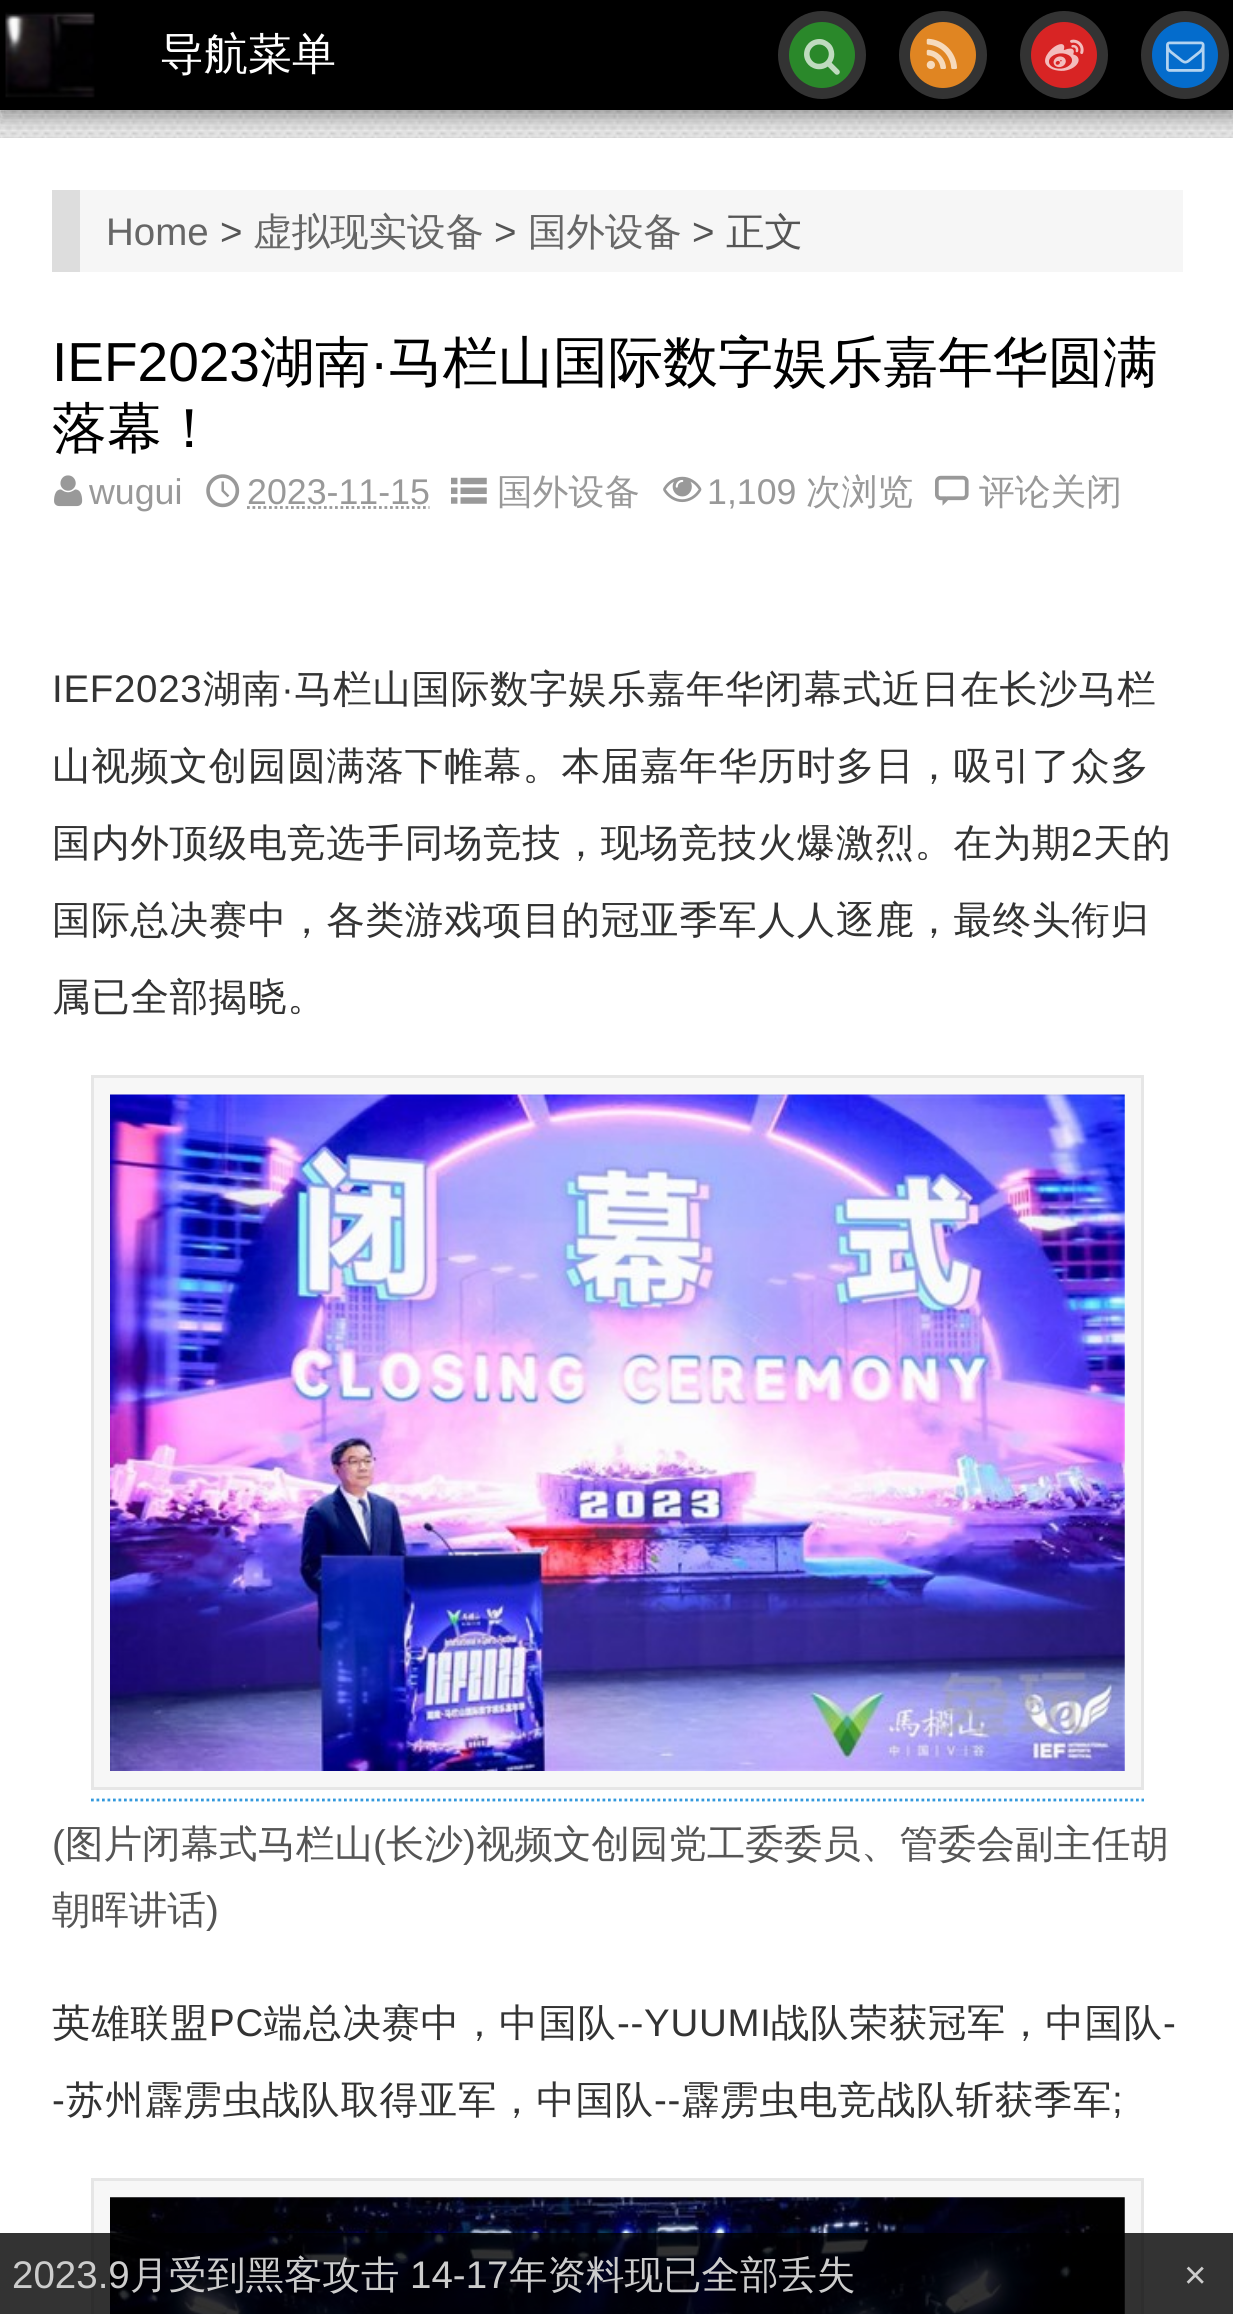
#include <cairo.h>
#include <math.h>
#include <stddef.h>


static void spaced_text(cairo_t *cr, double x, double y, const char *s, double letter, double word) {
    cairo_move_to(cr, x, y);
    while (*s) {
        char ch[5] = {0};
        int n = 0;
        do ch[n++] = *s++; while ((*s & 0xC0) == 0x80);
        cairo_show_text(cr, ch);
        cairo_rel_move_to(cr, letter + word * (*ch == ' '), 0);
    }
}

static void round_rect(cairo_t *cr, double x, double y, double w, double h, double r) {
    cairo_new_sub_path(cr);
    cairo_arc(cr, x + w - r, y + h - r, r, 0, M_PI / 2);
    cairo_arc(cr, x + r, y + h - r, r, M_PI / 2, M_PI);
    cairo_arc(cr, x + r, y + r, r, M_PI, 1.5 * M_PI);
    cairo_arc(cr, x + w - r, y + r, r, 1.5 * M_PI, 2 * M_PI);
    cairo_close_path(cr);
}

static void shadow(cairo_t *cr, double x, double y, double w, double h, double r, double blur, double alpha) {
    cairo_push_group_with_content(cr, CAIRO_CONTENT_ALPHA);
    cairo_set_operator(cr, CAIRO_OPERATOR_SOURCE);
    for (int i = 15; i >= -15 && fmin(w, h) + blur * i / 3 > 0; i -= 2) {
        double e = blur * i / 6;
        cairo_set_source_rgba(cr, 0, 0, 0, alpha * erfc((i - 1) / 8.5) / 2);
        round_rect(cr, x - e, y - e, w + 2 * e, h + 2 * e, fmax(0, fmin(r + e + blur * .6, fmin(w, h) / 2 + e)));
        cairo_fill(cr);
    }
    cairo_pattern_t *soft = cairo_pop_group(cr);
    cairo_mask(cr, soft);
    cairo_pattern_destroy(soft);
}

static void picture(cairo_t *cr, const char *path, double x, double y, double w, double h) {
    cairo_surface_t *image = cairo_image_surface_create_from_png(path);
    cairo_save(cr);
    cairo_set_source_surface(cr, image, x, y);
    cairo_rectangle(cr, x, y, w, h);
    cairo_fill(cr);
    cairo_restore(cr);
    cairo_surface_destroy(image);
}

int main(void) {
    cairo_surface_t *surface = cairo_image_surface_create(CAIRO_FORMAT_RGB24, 1233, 2314);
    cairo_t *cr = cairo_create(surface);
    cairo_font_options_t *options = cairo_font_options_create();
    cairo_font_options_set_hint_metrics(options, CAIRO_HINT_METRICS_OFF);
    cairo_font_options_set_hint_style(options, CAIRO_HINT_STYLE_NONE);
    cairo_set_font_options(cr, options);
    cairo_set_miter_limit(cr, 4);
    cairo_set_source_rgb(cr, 1, 1, 1);
    cairo_paint(cr);
    picture(cr, "img1.png", 0, 110, 1233, 28);
    cairo_set_source_rgb(cr, 0, 0, 0);
    shadow(cr, 0, 140, 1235, 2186, 0, 4, 0.2);
    cairo_set_source_rgb(cr, 1, 1, 1);
    cairo_rectangle(cr, 0, 138, 1233, 2176);
    cairo_fill(cr);
    cairo_set_source_rgb(cr, 0, 0, 0);
    shadow(cr, 0, 8, 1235, 110, 0, 8, 0.3);
    cairo_set_source_rgb(cr, 0, 0, 0);
    cairo_rectangle(cr, 0, 0, 1233, 110);
    cairo_fill(cr);
    picture(cr, "img2.png", 5, 12, 90, 86);
    cairo_select_font_face(cr, "WenQuanYi Zen Hei Medium", CAIRO_FONT_SLANT_NORMAL, CAIRO_FONT_WEIGHT_NORMAL);
    cairo_set_font_size(cr, 44);
    cairo_set_source_rgb(cr, 1, 1, 1);
    cairo_move_to(cr, 160, 69);
    cairo_show_text(cr, "导航菜单");
    cairo_set_source_rgb(cr, 0.165, 0.533, 0.165);
    cairo_new_path(cr);
    cairo_arc(cr, 822, 55, 38.5, 0, 2 * M_PI);
    cairo_fill_preserve(cr);
    cairo_set_source_rgb(cr, 0.2, 0.2, 0.2);
    cairo_set_line_width(cr, 11);
    cairo_stroke(cr);
    cairo_select_font_face(cr, "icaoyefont", CAIRO_FONT_SLANT_NORMAL, CAIRO_FONT_WEIGHT_NORMAL);
    cairo_set_font_size(cr, 38.5);
    cairo_set_source_rgb(cr, 0.749, 0.859, 0.749);
    cairo_move_to(cr, 804, 69);
    cairo_show_text(cr, "?");
    cairo_set_source_rgb(cr, 0.878, 0.522, 0.133);
    cairo_new_path(cr);
    cairo_arc(cr, 943, 55, 38.5, 0, 2 * M_PI);
    cairo_fill_preserve(cr);
    cairo_set_source_rgb(cr, 0.2, 0.2, 0.2);
    cairo_stroke(cr);
    picture(cr, "img3.png", 926, 38, 31, 31);
    cairo_set_source_rgb(cr, 0.847, 0.141, 0.141);
    cairo_arc(cr, 1064, 55, 38.5, 0, 2 * M_PI);
    cairo_fill_preserve(cr);
    cairo_set_source_rgb(cr, 0.2, 0.2, 0.2);
    cairo_stroke(cr);
    picture(cr, "img4.png", 1045, 39, 39, 32);
    cairo_set_source_rgb(cr, 0.016, 0.424, 0.8);
    cairo_arc(cr, 1185, 55, 38.5, 0, 2 * M_PI);
    cairo_fill_preserve(cr);
    cairo_set_source_rgb(cr, 0.2, 0.2, 0.2);
    cairo_stroke(cr);
    picture(cr, "img5.png", 1166, 41, 39, 31);
    cairo_set_source_rgb(cr, 0.961, 0.961, 0.961);
    cairo_rectangle(cr, 80, 190, 1103, 82);
    cairo_fill(cr);
    cairo_set_source_rgb(cr, 0.867, 0.867, 0.867);
    cairo_rectangle(cr, 52, 190, 28, 82);
    cairo_fill(cr);
    cairo_select_font_face(cr, "Liberation Sans", CAIRO_FONT_SLANT_NORMAL, CAIRO_FONT_WEIGHT_NORMAL);
    cairo_set_source_rgb(cr, 0.4, 0.4, 0.4);
    cairo_move_to(cr, 106, 245);
    cairo_show_text(cr, "Home");
    cairo_set_source_rgb(cr, 0.333, 0.333, 0.333);
    cairo_move_to(cr, 220, 245);
    cairo_show_text(cr, ">");
    cairo_select_font_face(cr, "WenQuanYi Zen Hei Medium", CAIRO_FONT_SLANT_NORMAL, CAIRO_FONT_WEIGHT_NORMAL);
    cairo_set_source_rgb(cr, 0.4, 0.4, 0.4);
    cairo_move_to(cr, 253, 245);
    cairo_show_text(cr, "虚拟现实设备");
    cairo_select_font_face(cr, "Liberation Sans", CAIRO_FONT_SLANT_NORMAL, CAIRO_FONT_WEIGHT_NORMAL);
    cairo_set_source_rgb(cr, 0.333, 0.333, 0.333);
    cairo_move_to(cr, 494, 245);
    cairo_show_text(cr, ">");
    cairo_select_font_face(cr, "WenQuanYi Zen Hei Medium", CAIRO_FONT_SLANT_NORMAL, CAIRO_FONT_WEIGHT_NORMAL);
    cairo_set_source_rgb(cr, 0.4, 0.4, 0.4);
    cairo_move_to(cr, 528, 245);
    cairo_show_text(cr, "国外设备");
    cairo_select_font_face(cr, "Liberation Sans", CAIRO_FONT_SLANT_NORMAL, CAIRO_FONT_WEIGHT_NORMAL);
    cairo_set_source_rgb(cr, 0.333, 0.333, 0.333);
    cairo_move_to(cr, 692, 245);
    cairo_show_text(cr, ">");
    cairo_select_font_face(cr, "WenQuanYi Zen Hei Medium", CAIRO_FONT_SLANT_NORMAL, CAIRO_FONT_WEIGHT_NORMAL);
    cairo_move_to(cr, 726, 245);
    cairo_show_text(cr, "正文");
    cairo_select_font_face(cr, "Liberation Sans", CAIRO_FONT_SLANT_NORMAL, CAIRO_FONT_WEIGHT_NORMAL);
    cairo_set_font_size(cr, 55);
    cairo_set_source_rgb(cr, 0, 0, 0);
    cairo_move_to(cr, 52, 381);
    cairo_show_text(cr, "IEF2023");
    cairo_select_font_face(cr, "WenQuanYi Zen Hei Medium", CAIRO_FONT_SLANT_NORMAL, CAIRO_FONT_WEIGHT_NORMAL);
    cairo_move_to(cr, 260, 381);
    cairo_show_text(cr, "湖南");
    cairo_select_font_face(cr, "Liberation Sans", CAIRO_FONT_SLANT_NORMAL, CAIRO_FONT_WEIGHT_NORMAL);
    cairo_move_to(cr, 370, 381);
    cairo_show_text(cr, "·");
    cairo_select_font_face(cr, "WenQuanYi Zen Hei Medium", CAIRO_FONT_SLANT_NORMAL, CAIRO_FONT_WEIGHT_NORMAL);
    cairo_move_to(cr, 388, 381);
    cairo_show_text(cr, "马栏山国际数字娱乐嘉年华圆满");
    cairo_move_to(cr, 52, 447);
    cairo_show_text(cr, "落幕！");
    picture(cr, "img6.png", 54, 475, 29, 32);
    cairo_select_font_face(cr, "Liberation Sans", CAIRO_FONT_SLANT_NORMAL, CAIRO_FONT_WEIGHT_NORMAL);
    cairo_set_font_size(cr, 35.75);
    cairo_set_source_rgb(cr, 0.6, 0.6, 0.6);
    cairo_move_to(cr, 89, 504);
    cairo_show_text(cr, "wugui");
    picture(cr, "img7.png", 206, 474, 34, 34);
    cairo_move_to(cr, 247, 504);
    cairo_show_text(cr, "2023-11-15");
    cairo_new_path(cr);
    cairo_move_to(cr, 247, 507.5);
    cairo_line_to(cr, 429.5, 507.5);
    cairo_set_line_width(cr, 2.8);
    cairo_set_dash(cr, (double[]){2.75, 2.75}, 2, 0);
    cairo_stroke(cr);
    picture(cr, "img8.png", 451, 477, 36, 27);
    cairo_select_font_face(cr, "WenQuanYi Zen Hei Medium", CAIRO_FONT_SLANT_NORMAL, CAIRO_FONT_WEIGHT_NORMAL);
    cairo_move_to(cr, 497, 504);
    cairo_show_text(cr, "国外设备");
    picture(cr, "img9.png", 663, 476, 39, 27);
    cairo_select_font_face(cr, "Liberation Sans", CAIRO_FONT_SLANT_NORMAL, CAIRO_FONT_WEIGHT_NORMAL);
    cairo_move_to(cr, 707, 504);
    cairo_show_text(cr, "1,109");
    cairo_select_font_face(cr, "WenQuanYi Zen Hei Medium", CAIRO_FONT_SLANT_NORMAL, CAIRO_FONT_WEIGHT_NORMAL);
    cairo_move_to(cr, 806, 504);
    cairo_show_text(cr, "次浏览");
    picture(cr, "img10.png", 935, 475, 34, 31);
    cairo_move_to(cr, 979, 504);
    cairo_show_text(cr, "评论关闭");
    cairo_select_font_face(cr, "Liberation Sans", CAIRO_FONT_SLANT_NORMAL, CAIRO_FONT_WEIGHT_NORMAL);
    cairo_set_font_size(cr, 38.5);
    cairo_set_source_rgb(cr, 0.2, 0.2, 0.2);
    spaced_text(cr, 52, 702, "IEF2023", 0.7, 0);
    cairo_select_font_face(cr, "WenQuanYi Zen Hei Medium", CAIRO_FONT_SLANT_NORMAL, CAIRO_FONT_WEIGHT_NORMAL);
    spaced_text(cr, 203, 702, "湖南", 0.7, 0);
    cairo_select_font_face(cr, "Liberation Sans", CAIRO_FONT_SLANT_NORMAL, CAIRO_FONT_WEIGHT_NORMAL);
    spaced_text(cr, 281, 702, "·", 0.7, 0);
    cairo_select_font_face(cr, "WenQuanYi Zen Hei Medium", CAIRO_FONT_SLANT_NORMAL, CAIRO_FONT_WEIGHT_NORMAL);
    spaced_text(cr, 294, 702, "马栏山国际数字娱乐嘉年华闭幕式近日在长沙马栏", 0.7, 0);
    spaced_text(cr, 52, 779, "山视频文创园圆满落下帷幕。本届嘉年华历时多日，吸引了众多", 0.7, 0);
    spaced_text(cr, 52, 856, "国内外顶级电竞选手同场竞技，现场竞技火爆激烈。在为期", 0.7, 0);
    cairo_select_font_face(cr, "Liberation Sans", CAIRO_FONT_SLANT_NORMAL, CAIRO_FONT_WEIGHT_NORMAL);
    spaced_text(cr, 1071, 856, "2", 0.7, 0);
    cairo_select_font_face(cr, "WenQuanYi Zen Hei Medium", CAIRO_FONT_SLANT_NORMAL, CAIRO_FONT_WEIGHT_NORMAL);
    spaced_text(cr, 1093, 856, "天的", 0.7, 0);
    spaced_text(cr, 52, 933, "国际总决赛中，各类游戏项目的冠亚季军人人逐鹿，最终头衔归", 0.7, 0);
    spaced_text(cr, 52, 1010, "属已全部揭晓。", 0.7, 0);
    cairo_set_source_rgb(cr, 0.965, 0.965, 0.965);
    cairo_rectangle(cr, 92.5, 1076.5, 1050, 712);
    cairo_fill_preserve(cr);
    cairo_set_source_rgb(cr, 0.902, 0.902, 0.902);
    cairo_set_line_width(cr, 3);
    cairo_set_dash(cr, NULL, 0, 0);
    cairo_stroke(cr);
    picture(cr, "img11.png", 110, 1094, 1015, 677);
    cairo_new_path(cr);
    cairo_move_to(cr, 91, 1800);
    cairo_line_to(cr, 1144, 1800);
    cairo_set_source_rgb(cr, 0.2, 0.6, 0.867);
    cairo_set_line_width(cr, 2.8);
    cairo_set_dash(cr, (double[]){2.75, 2.75}, 2, 0);
    cairo_stroke(cr);
    cairo_select_font_face(cr, "Liberation Sans", CAIRO_FONT_SLANT_NORMAL, CAIRO_FONT_WEIGHT_NORMAL);
    cairo_set_source_rgb(cr, 0.333, 0.333, 0.333);
    cairo_move_to(cr, 52, 1857);
    cairo_show_text(cr, "(");
    cairo_select_font_face(cr, "WenQuanYi Zen Hei Medium", CAIRO_FONT_SLANT_NORMAL, CAIRO_FONT_WEIGHT_NORMAL);
    cairo_move_to(cr, 65, 1857);
    cairo_show_text(cr, "图片闭幕式马栏山");
    cairo_select_font_face(cr, "Liberation Sans", CAIRO_FONT_SLANT_NORMAL, CAIRO_FONT_WEIGHT_NORMAL);
    cairo_move_to(cr, 373, 1857);
    cairo_show_text(cr, "(");
    cairo_select_font_face(cr, "WenQuanYi Zen Hei Medium", CAIRO_FONT_SLANT_NORMAL, CAIRO_FONT_WEIGHT_NORMAL);
    cairo_move_to(cr, 386, 1857);
    cairo_show_text(cr, "长沙");
    cairo_select_font_face(cr, "Liberation Sans", CAIRO_FONT_SLANT_NORMAL, CAIRO_FONT_WEIGHT_NORMAL);
    cairo_move_to(cr, 463, 1857);
    cairo_show_text(cr, ")");
    cairo_select_font_face(cr, "WenQuanYi Zen Hei Medium", CAIRO_FONT_SLANT_NORMAL, CAIRO_FONT_WEIGHT_NORMAL);
    cairo_move_to(cr, 476, 1857);
    cairo_show_text(cr, "视频文创园党工委委员、管委会副主任胡");
    cairo_move_to(cr, 52, 1923);
    cairo_show_text(cr, "朝晖讲话");
    cairo_select_font_face(cr, "Liberation Sans", CAIRO_FONT_SLANT_NORMAL, CAIRO_FONT_WEIGHT_NORMAL);
    cairo_move_to(cr, 206, 1923);
    cairo_show_text(cr, ")");
    cairo_select_font_face(cr, "WenQuanYi Zen Hei Medium", CAIRO_FONT_SLANT_NORMAL, CAIRO_FONT_WEIGHT_NORMAL);
    cairo_set_source_rgb(cr, 0.2, 0.2, 0.2);
    spaced_text(cr, 52, 2036, "英雄联盟", 0.7, 0);
    cairo_select_font_face(cr, "Liberation Sans", CAIRO_FONT_SLANT_NORMAL, CAIRO_FONT_WEIGHT_NORMAL);
    spaced_text(cr, 209, 2036, "PC", 0.7, 0);
    cairo_select_font_face(cr, "WenQuanYi Zen Hei Medium", CAIRO_FONT_SLANT_NORMAL, CAIRO_FONT_WEIGHT_NORMAL);
    spaced_text(cr, 264, 2036, "端总决赛中，中国队", 0.7, 0);
    cairo_select_font_face(cr, "Liberation Sans", CAIRO_FONT_SLANT_NORMAL, CAIRO_FONT_WEIGHT_NORMAL);
    spaced_text(cr, 617, 2036, "--YUUMI", 0.7, 0);
    cairo_select_font_face(cr, "WenQuanYi Zen Hei Medium", CAIRO_FONT_SLANT_NORMAL, CAIRO_FONT_WEIGHT_NORMAL);
    spaced_text(cr, 771, 2036, "战队荣获冠军，中国队", 0.7, 0);
    cairo_select_font_face(cr, "Liberation Sans", CAIRO_FONT_SLANT_NORMAL, CAIRO_FONT_WEIGHT_NORMAL);
    spaced_text(cr, 1163, 2036, "-", 0.7, 0);
    spaced_text(cr, 52, 2113, "-", 0.7, 0);
    cairo_select_font_face(cr, "WenQuanYi Zen Hei Medium", CAIRO_FONT_SLANT_NORMAL, CAIRO_FONT_WEIGHT_NORMAL);
    spaced_text(cr, 66, 2113, "苏州霹雳虫战队取得亚军，中国队", 0.7, 0);
    cairo_select_font_face(cr, "Liberation Sans", CAIRO_FONT_SLANT_NORMAL, CAIRO_FONT_WEIGHT_NORMAL);
    spaced_text(cr, 654, 2113, "--", 0.7, 0);
    cairo_select_font_face(cr, "WenQuanYi Zen Hei Medium", CAIRO_FONT_SLANT_NORMAL, CAIRO_FONT_WEIGHT_NORMAL);
    spaced_text(cr, 681, 2113, "霹雳虫电竞战队斩获季军", 0.7, 0);
    cairo_select_font_face(cr, "Liberation Sans", CAIRO_FONT_SLANT_NORMAL, CAIRO_FONT_WEIGHT_NORMAL);
    spaced_text(cr, 1112, 2113, ";", 0.7, 0);
    cairo_set_source_rgb(cr, 0.965, 0.965, 0.965);
    cairo_rectangle(cr, 92.5, 2179.5, 1050, 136);
    cairo_fill_preserve(cr);
    cairo_set_source_rgb(cr, 0.902, 0.902, 0.902);
    cairo_set_line_width(cr, 3);
    cairo_set_dash(cr, NULL, 0, 0);
    cairo_stroke(cr);
    picture(cr, "img12.png", 110, 2197, 1015, 117);
    cairo_set_source_rgba(cr, 0, 0, 0, 0.8);
    cairo_rectangle(cr, 0, 2233, 1233, 81);
    cairo_fill(cr);
    cairo_set_source_rgb(cr, 0.8, 0.8, 0.8);
    cairo_move_to(cr, 12, 2288);
    cairo_show_text(cr, "2023.9");
    cairo_select_font_face(cr, "WenQuanYi Zen Hei Medium", CAIRO_FONT_SLANT_NORMAL, CAIRO_FONT_WEIGHT_NORMAL);
    cairo_move_to(cr, 130, 2288);
    cairo_show_text(cr, "月受到黑客攻击");
    cairo_select_font_face(cr, "Liberation Sans", CAIRO_FONT_SLANT_NORMAL, CAIRO_FONT_WEIGHT_NORMAL);
    cairo_move_to(cr, 410, 2288);
    cairo_show_text(cr, "14-17");
    cairo_select_font_face(cr, "WenQuanYi Zen Hei Medium", CAIRO_FONT_SLANT_NORMAL, CAIRO_FONT_WEIGHT_NORMAL);
    cairo_move_to(cr, 509, 2288);
    cairo_show_text(cr, "年资料现已全部丢失");
    cairo_select_font_face(cr, "Liberation Sans", CAIRO_FONT_SLANT_NORMAL, CAIRO_FONT_WEIGHT_NORMAL);
    cairo_move_to(cr, 1184, 2288);
    cairo_show_text(cr, "×");
    cairo_surface_write_to_png(surface, "page.png");
    cairo_font_options_destroy(options);
    cairo_destroy(cr);
    cairo_surface_destroy(surface);
    return 0;
}
